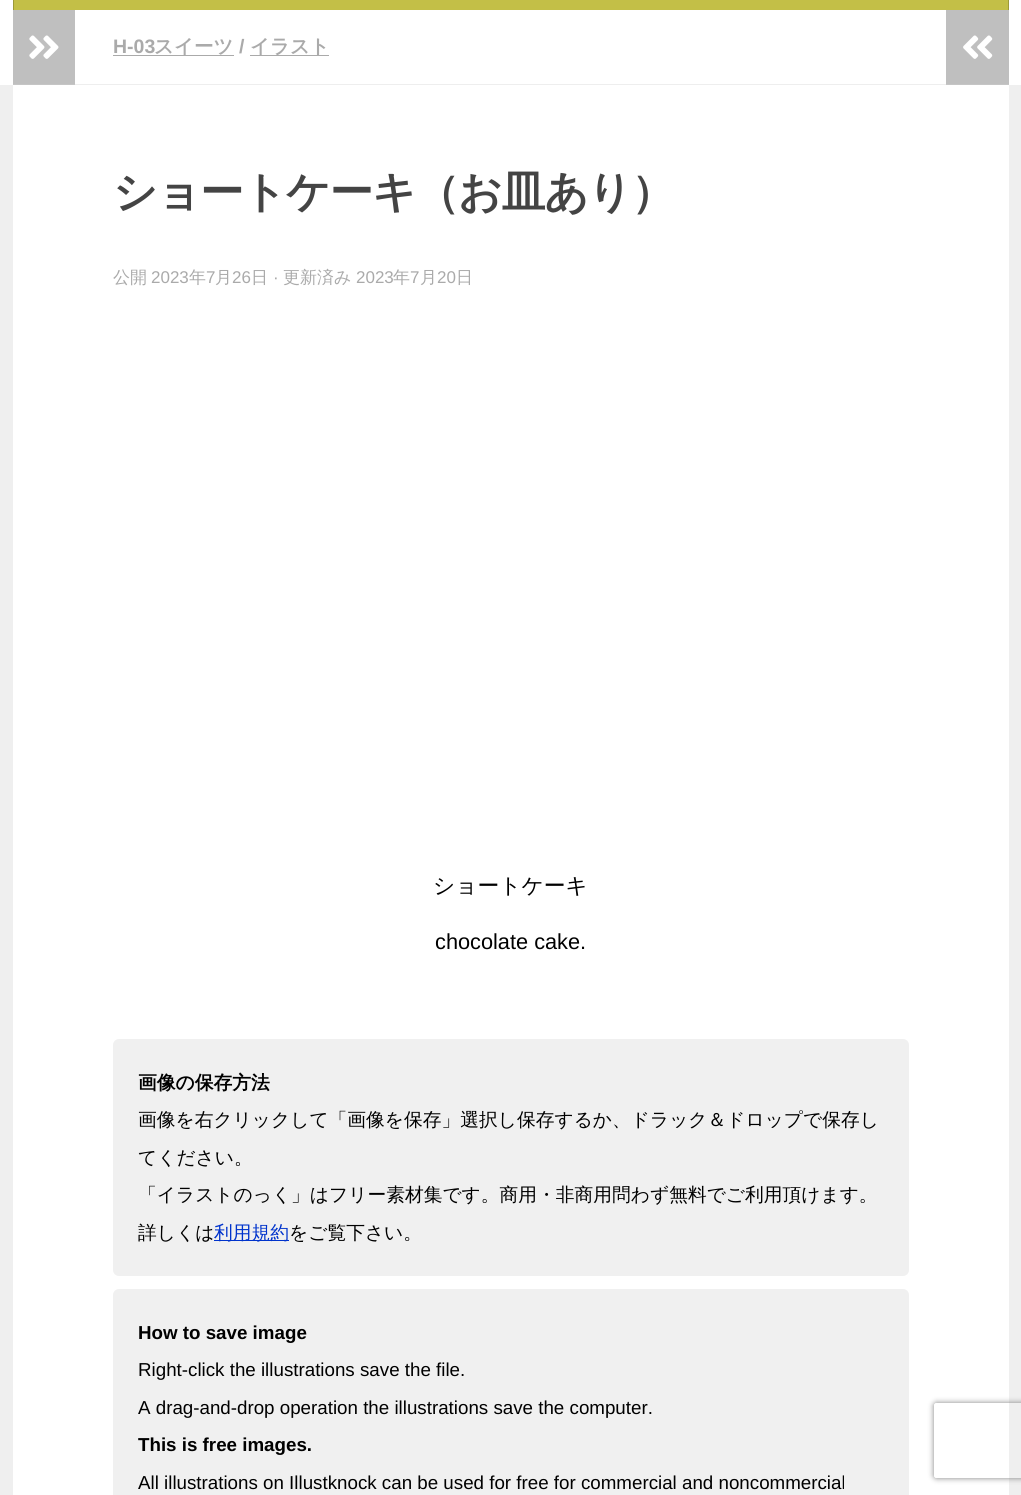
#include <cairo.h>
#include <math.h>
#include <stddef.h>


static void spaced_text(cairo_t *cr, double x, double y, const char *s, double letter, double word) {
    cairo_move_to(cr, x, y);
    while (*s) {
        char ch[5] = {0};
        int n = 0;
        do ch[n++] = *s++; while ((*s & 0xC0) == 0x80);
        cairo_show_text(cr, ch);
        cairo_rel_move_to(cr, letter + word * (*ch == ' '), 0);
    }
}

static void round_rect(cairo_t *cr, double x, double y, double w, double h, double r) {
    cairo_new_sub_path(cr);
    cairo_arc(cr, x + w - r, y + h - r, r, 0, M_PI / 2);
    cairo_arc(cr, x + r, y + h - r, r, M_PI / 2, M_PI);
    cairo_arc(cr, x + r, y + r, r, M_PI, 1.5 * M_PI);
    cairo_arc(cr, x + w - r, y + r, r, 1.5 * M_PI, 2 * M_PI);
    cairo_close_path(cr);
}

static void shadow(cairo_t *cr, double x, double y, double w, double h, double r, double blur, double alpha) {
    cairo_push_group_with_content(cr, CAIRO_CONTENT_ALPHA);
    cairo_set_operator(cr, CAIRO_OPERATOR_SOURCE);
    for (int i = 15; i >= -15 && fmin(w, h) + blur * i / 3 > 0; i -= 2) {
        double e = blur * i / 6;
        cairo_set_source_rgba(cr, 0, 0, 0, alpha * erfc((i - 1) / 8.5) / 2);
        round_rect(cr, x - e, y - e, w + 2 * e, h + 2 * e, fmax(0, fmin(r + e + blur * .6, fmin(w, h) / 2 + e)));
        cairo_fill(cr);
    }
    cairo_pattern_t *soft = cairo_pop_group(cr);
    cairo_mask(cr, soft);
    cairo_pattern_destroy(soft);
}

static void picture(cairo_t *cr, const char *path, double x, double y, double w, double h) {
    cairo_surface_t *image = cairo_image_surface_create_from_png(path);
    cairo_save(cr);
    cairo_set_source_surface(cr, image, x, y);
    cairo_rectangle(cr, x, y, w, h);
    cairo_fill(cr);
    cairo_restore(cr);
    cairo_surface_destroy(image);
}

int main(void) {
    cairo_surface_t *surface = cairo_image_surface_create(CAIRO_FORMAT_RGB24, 1021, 1495);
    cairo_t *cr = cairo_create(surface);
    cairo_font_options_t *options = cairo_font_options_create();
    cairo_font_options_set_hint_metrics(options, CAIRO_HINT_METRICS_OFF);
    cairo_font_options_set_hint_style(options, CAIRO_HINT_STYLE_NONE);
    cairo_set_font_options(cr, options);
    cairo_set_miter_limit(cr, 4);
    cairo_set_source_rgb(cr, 0.937, 0.937, 0.937);
    cairo_paint(cr);
    cairo_set_source_rgb(cr, 1, 1, 1);
    cairo_rectangle(cr, 0, 0, 1021, 85);
    cairo_fill(cr);
    cairo_set_source_rgb(cr, 0.765, 0.749, 0.278);
    cairo_rectangle(cr, 14, 0, 994, 10);
    cairo_fill(cr);
    cairo_set_source_rgb(cr, 0.612, 0.6, 0.224);
    cairo_rectangle(cr, 1008, 0, 1, 10);
    cairo_fill(cr);
    cairo_rectangle(cr, 13, 0, 1, 10);
    cairo_fill(cr);
    cairo_set_source_rgb(cr, 1, 1, 1);
    cairo_rectangle(cr, 13, 85, 996, 1410);
    cairo_fill(cr);
    cairo_set_source_rgb(cr, 0.749, 0.749, 0.749);
    cairo_rectangle(cr, 13, 10, 62, 74);
    cairo_fill(cr);
    cairo_set_source_rgb(cr, 0.773, 0.773, 0.773);
    cairo_rectangle(cr, 13, 84, 62, 1);
    cairo_fill(cr);
    picture(cr, "img1.png", 29, 35, 30, 24);
    cairo_set_source_rgb(cr, 0.933, 0.933, 0.933);
    cairo_rectangle(cr, 75, 84, 871, 1);
    cairo_fill(cr);
    cairo_select_font_face(cr, "Liberation Sans", CAIRO_FONT_SLANT_NORMAL, CAIRO_FONT_WEIGHT_BOLD);
    cairo_set_font_size(cr, 19.5);
    cairo_set_source_rgb(cr, 0.667, 0.667, 0.667);
    cairo_move_to(cr, 113, 53);
    cairo_show_text(cr, "H-03");
    cairo_rectangle(cr, 113, 55, 121, 1);
    cairo_fill(cr);
    cairo_select_font_face(cr, "WenQuanYi Zen Hei", CAIRO_FONT_SLANT_NORMAL, CAIRO_FONT_WEIGHT_BOLD);
    cairo_move_to(cr, 154, 53);
    cairo_show_text(cr, "スイーツ");
    cairo_select_font_face(cr, "Liberation Sans", CAIRO_FONT_SLANT_NORMAL, CAIRO_FONT_WEIGHT_BOLD);
    cairo_move_to(cr, 239, 53);
    cairo_show_text(cr, "/");
    cairo_rectangle(cr, 250, 55, 79, 1);
    cairo_fill(cr);
    cairo_select_font_face(cr, "WenQuanYi Zen Hei", CAIRO_FONT_SLANT_NORMAL, CAIRO_FONT_WEIGHT_BOLD);
    cairo_move_to(cr, 250, 53);
    cairo_show_text(cr, "イラスト");
    cairo_set_font_size(cr, 43.75);
    cairo_set_source_rgb(cr, 0.267, 0.267, 0.267);
    spaced_text(cr, 113, 207, "ショートケーキ（お皿あり）", -1.25, 0);
    cairo_select_font_face(cr, "WenQuanYi Zen Hei Medium", CAIRO_FONT_SLANT_NORMAL, CAIRO_FONT_WEIGHT_NORMAL);
    cairo_set_font_size(cr, 17);
    cairo_set_source_rgb(cr, 0.667, 0.667, 0.667);
    cairo_move_to(cr, 113, 283);
    cairo_show_text(cr, "公開");
    cairo_select_font_face(cr, "Liberation Sans", CAIRO_FONT_SLANT_NORMAL, CAIRO_FONT_WEIGHT_NORMAL);
    cairo_move_to(cr, 151, 283);
    cairo_show_text(cr, "2023");
    cairo_select_font_face(cr, "WenQuanYi Zen Hei Medium", CAIRO_FONT_SLANT_NORMAL, CAIRO_FONT_WEIGHT_NORMAL);
    cairo_move_to(cr, 189, 283);
    cairo_show_text(cr, "年");
    cairo_select_font_face(cr, "Liberation Sans", CAIRO_FONT_SLANT_NORMAL, CAIRO_FONT_WEIGHT_NORMAL);
    cairo_move_to(cr, 206, 283);
    cairo_show_text(cr, "7");
    cairo_select_font_face(cr, "WenQuanYi Zen Hei Medium", CAIRO_FONT_SLANT_NORMAL, CAIRO_FONT_WEIGHT_NORMAL);
    cairo_move_to(cr, 215, 283);
    cairo_show_text(cr, "月");
    cairo_select_font_face(cr, "Liberation Sans", CAIRO_FONT_SLANT_NORMAL, CAIRO_FONT_WEIGHT_NORMAL);
    cairo_move_to(cr, 232, 283);
    cairo_show_text(cr, "26");
    cairo_select_font_face(cr, "WenQuanYi Zen Hei Medium", CAIRO_FONT_SLANT_NORMAL, CAIRO_FONT_WEIGHT_NORMAL);
    cairo_move_to(cr, 251, 283);
    cairo_show_text(cr, "日");
    cairo_select_font_face(cr, "Liberation Sans", CAIRO_FONT_SLANT_NORMAL, CAIRO_FONT_WEIGHT_NORMAL);
    cairo_move_to(cr, 273, 283);
    cairo_show_text(cr, "·");
    cairo_select_font_face(cr, "WenQuanYi Zen Hei Medium", CAIRO_FONT_SLANT_NORMAL, CAIRO_FONT_WEIGHT_NORMAL);
    cairo_move_to(cr, 283, 283);
    cairo_show_text(cr, "更新済み");
    cairo_select_font_face(cr, "Liberation Sans", CAIRO_FONT_SLANT_NORMAL, CAIRO_FONT_WEIGHT_NORMAL);
    cairo_move_to(cr, 356, 283);
    cairo_show_text(cr, "2023");
    cairo_select_font_face(cr, "WenQuanYi Zen Hei Medium", CAIRO_FONT_SLANT_NORMAL, CAIRO_FONT_WEIGHT_NORMAL);
    cairo_move_to(cr, 393, 283);
    cairo_show_text(cr, "年");
    cairo_select_font_face(cr, "Liberation Sans", CAIRO_FONT_SLANT_NORMAL, CAIRO_FONT_WEIGHT_NORMAL);
    cairo_move_to(cr, 410, 283);
    cairo_show_text(cr, "7");
    cairo_select_font_face(cr, "WenQuanYi Zen Hei Medium", CAIRO_FONT_SLANT_NORMAL, CAIRO_FONT_WEIGHT_NORMAL);
    cairo_move_to(cr, 420, 283);
    cairo_show_text(cr, "月");
    cairo_select_font_face(cr, "Liberation Sans", CAIRO_FONT_SLANT_NORMAL, CAIRO_FONT_WEIGHT_NORMAL);
    cairo_move_to(cr, 437, 283);
    cairo_show_text(cr, "20");
    cairo_select_font_face(cr, "WenQuanYi Zen Hei Medium", CAIRO_FONT_SLANT_NORMAL, CAIRO_FONT_WEIGHT_NORMAL);
    cairo_move_to(cr, 456, 283);
    cairo_show_text(cr, "日");
    cairo_set_font_size(cr, 21.75);
    cairo_set_source_rgb(cr, 0, 0, 0);
    cairo_move_to(cr, 433, 893);
    cairo_show_text(cr, "ショートケーキ");
    cairo_select_font_face(cr, "Liberation Sans", CAIRO_FONT_SLANT_NORMAL, CAIRO_FONT_WEIGHT_NORMAL);
    cairo_move_to(cr, 435, 949);
    cairo_show_text(cr, "chocolate cake.");
    cairo_set_source_rgb(cr, 0.941, 0.941, 0.941);
    round_rect(cr, 113, 1039, 796, 237, 6);
    cairo_fill(cr);
    cairo_select_font_face(cr, "WenQuanYi Zen Hei", CAIRO_FONT_SLANT_NORMAL, CAIRO_FONT_WEIGHT_BOLD);
    cairo_set_font_size(cr, 18.75);
    cairo_set_source_rgb(cr, 0, 0, 0);
    cairo_move_to(cr, 138, 1089);
    cairo_show_text(cr, "画像の保存方法");
    cairo_select_font_face(cr, "WenQuanYi Zen Hei Medium", CAIRO_FONT_SLANT_NORMAL, CAIRO_FONT_WEIGHT_NORMAL);
    cairo_move_to(cr, 138, 1126);
    cairo_show_text(cr, "画像を右クリックして「画像を保存」選択し保存するか、ドラック＆ドロップで保存し");
    cairo_move_to(cr, 138, 1164);
    cairo_show_text(cr, "てください。");
    cairo_move_to(cr, 138, 1201);
    cairo_show_text(cr, "「イラストのっく」はフリー素材集です。商用・非商用問わず無料でご利用頂けます。");
    cairo_move_to(cr, 138, 1239);
    cairo_show_text(cr, "詳しくは");
    cairo_set_source_rgb(cr, 0, 0.2, 0.8);
    cairo_rectangle(cr, 214, 1240, 75, 1);
    cairo_fill(cr);
    cairo_move_to(cr, 214, 1239);
    cairo_show_text(cr, "利用規約");
    cairo_set_source_rgb(cr, 0, 0, 0);
    cairo_move_to(cr, 289, 1239);
    cairo_show_text(cr, "をご覧下さい。");
    cairo_set_source_rgb(cr, 0.941, 0.941, 0.941);
    round_rect(cr, 113, 1289, 796, 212, 6);
    cairo_fill(cr);
    cairo_select_font_face(cr, "Liberation Sans", CAIRO_FONT_SLANT_NORMAL, CAIRO_FONT_WEIGHT_BOLD);
    cairo_set_source_rgb(cr, 0, 0, 0);
    cairo_move_to(cr, 138, 1339);
    cairo_show_text(cr, "How to save image");
    cairo_select_font_face(cr, "Liberation Sans", CAIRO_FONT_SLANT_NORMAL, CAIRO_FONT_WEIGHT_NORMAL);
    cairo_move_to(cr, 138, 1376);
    cairo_show_text(cr, "Right-click the illustrations save the file.");
    cairo_move_to(cr, 138, 1414);
    cairo_show_text(cr, "A drag-and-drop operation the illustrations save the computer.");
    cairo_select_font_face(cr, "Liberation Sans", CAIRO_FONT_SLANT_NORMAL, CAIRO_FONT_WEIGHT_BOLD);
    cairo_move_to(cr, 138, 1451);
    cairo_show_text(cr, "This is free images.");
    cairo_select_font_face(cr, "Liberation Sans", CAIRO_FONT_SLANT_NORMAL, CAIRO_FONT_WEIGHT_NORMAL);
    cairo_move_to(cr, 138, 1489);
    cairo_show_text(cr, "All illustrations on Illustknock can be used for free for commercial and noncommercial");
    cairo_set_source_rgb(cr, 0.749, 0.749, 0.749);
    cairo_rectangle(cr, 946, 10, 63, 74);
    cairo_fill(cr);
    cairo_set_source_rgb(cr, 0.773, 0.773, 0.773);
    cairo_rectangle(cr, 946, 84, 63, 1);
    cairo_fill(cr);
    picture(cr, "img2.png", 963, 35, 30, 24);
    cairo_save(cr);
    cairo_set_fill_rule(cr, CAIRO_FILL_RULE_EVEN_ODD);
    cairo_new_path(cr);
    cairo_move_to(cr, 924, 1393);
    cairo_line_to(cr, 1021, 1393);
    cairo_line_to(cr, 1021, 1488);
    cairo_line_to(cr, 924, 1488);
    cairo_close_path(cr);
    cairo_move_to(cr, 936.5, 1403);
    cairo_line_to(cr, 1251.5, 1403);
    cairo_curve_to(cr, 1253, 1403, 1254, 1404, 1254, 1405.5);
    cairo_line_to(cr, 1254, 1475.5);
    cairo_curve_to(cr, 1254, 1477, 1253, 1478, 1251.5, 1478);
    cairo_line_to(cr, 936.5, 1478);
    cairo_curve_to(cr, 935, 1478, 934, 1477, 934, 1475.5);
    cairo_line_to(cr, 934, 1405.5);
    cairo_curve_to(cr, 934, 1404, 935, 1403, 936.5, 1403);
    cairo_close_path(cr);
    cairo_clip(cr);
    cairo_set_source_rgb(cr, 0.502, 0.502, 0.502);
    shadow(cr, 934, 1403, 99, 75, 2.5, 3, 1);
    cairo_restore(cr);
    cairo_surface_write_to_png(surface, "page.png");
    cairo_font_options_destroy(options);
    cairo_destroy(cr);
    cairo_surface_destroy(surface);
    return 0;
}
